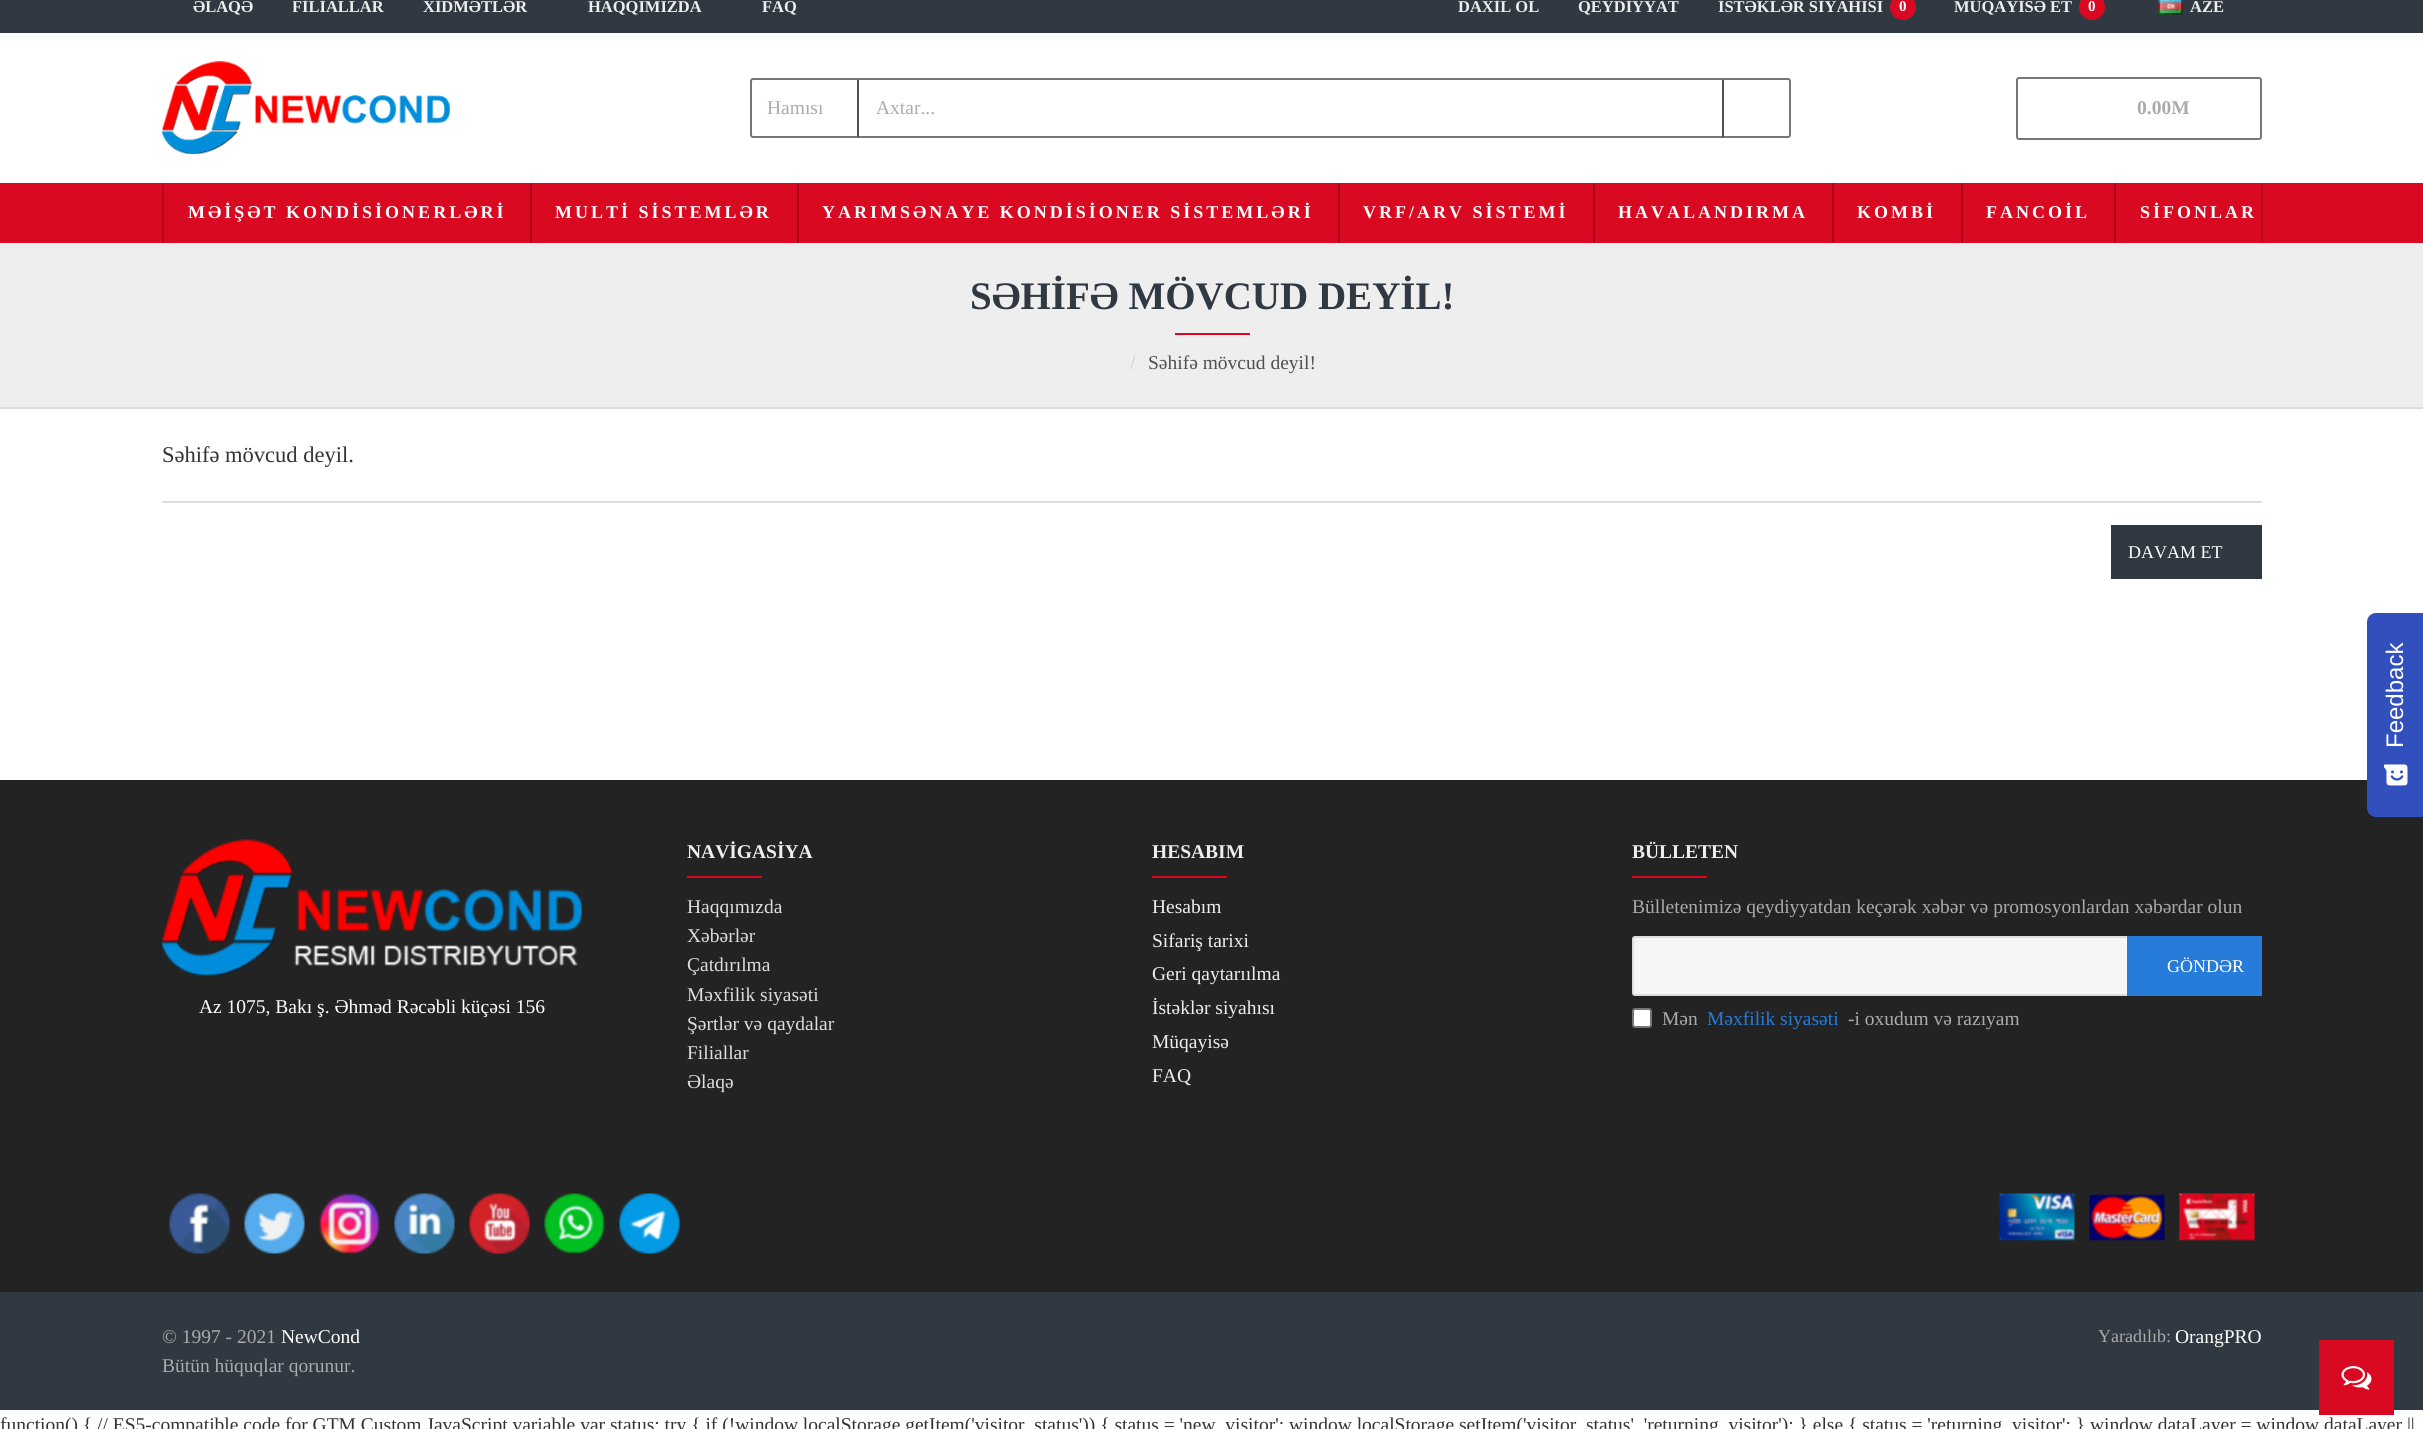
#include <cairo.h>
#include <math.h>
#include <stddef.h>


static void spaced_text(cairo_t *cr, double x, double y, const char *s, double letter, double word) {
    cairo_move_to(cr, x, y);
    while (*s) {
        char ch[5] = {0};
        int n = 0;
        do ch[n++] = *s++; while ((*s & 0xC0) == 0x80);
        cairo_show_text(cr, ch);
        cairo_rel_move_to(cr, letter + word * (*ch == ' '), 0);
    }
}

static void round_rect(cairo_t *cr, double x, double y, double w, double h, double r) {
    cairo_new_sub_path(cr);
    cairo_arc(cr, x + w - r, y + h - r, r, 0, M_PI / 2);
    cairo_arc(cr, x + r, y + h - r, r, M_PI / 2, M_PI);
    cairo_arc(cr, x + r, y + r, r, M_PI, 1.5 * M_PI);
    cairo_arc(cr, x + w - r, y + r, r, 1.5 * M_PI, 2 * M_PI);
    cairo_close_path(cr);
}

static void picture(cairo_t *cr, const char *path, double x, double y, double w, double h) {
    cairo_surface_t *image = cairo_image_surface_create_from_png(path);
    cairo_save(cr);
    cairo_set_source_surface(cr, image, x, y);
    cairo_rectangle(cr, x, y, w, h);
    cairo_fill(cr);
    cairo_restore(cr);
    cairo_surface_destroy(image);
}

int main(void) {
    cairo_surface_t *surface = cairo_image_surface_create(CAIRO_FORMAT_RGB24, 2423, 1429);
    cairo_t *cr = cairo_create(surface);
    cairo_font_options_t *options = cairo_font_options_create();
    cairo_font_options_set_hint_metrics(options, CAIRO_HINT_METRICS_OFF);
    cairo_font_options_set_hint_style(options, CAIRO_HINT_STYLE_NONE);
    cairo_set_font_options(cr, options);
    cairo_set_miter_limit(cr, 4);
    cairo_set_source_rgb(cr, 1, 1, 1);
    cairo_paint(cr);
    cairo_set_source_rgb(cr, 0.188, 0.22, 0.255);
    cairo_rectangle(cr, 0, 0, 2423, 33);
    cairo_fill(cr);
    cairo_select_font_face(cr, "Liberation Serif", CAIRO_FONT_SLANT_NORMAL, CAIRO_FONT_WEIGHT_BOLD);
    cairo_set_font_size(cr, 16.5);
    cairo_set_source_rgb(cr, 0.933, 0.933, 0.933);
    cairo_move_to(cr, 193, 12);
    cairo_show_text(cr, "ƏLAQƏ");
    cairo_save(cr);
    cairo_rectangle(cr, 293, 0, 91, 20);
    cairo_clip(cr);
    cairo_move_to(cr, 292, 12);
    cairo_show_text(cr, "FİLİALLAR");
    cairo_restore(cr);
    cairo_move_to(cr, 423, 12);
    cairo_show_text(cr, "XİDMƏTLƏR");
    cairo_move_to(cr, 588, 12);
    cairo_show_text(cr, "HAQQIMIZDA");
    cairo_move_to(cr, 762, 12);
    cairo_show_text(cr, "FAQ");
    cairo_move_to(cr, 1458, 12);
    cairo_show_text(cr, "DAXİL OL");
    cairo_move_to(cr, 1578, 12);
    cairo_show_text(cr, "QEYDİYYAT");
    cairo_move_to(cr, 1718, 12);
    cairo_show_text(cr, "İSTƏKLƏR SİYAHISI");
    cairo_set_source_rgb(cr, 0.855, 0.039, 0.133);
    cairo_new_path(cr);
    cairo_arc(cr, 1903, 7, 13, 0, 2 * M_PI);
    cairo_fill(cr);
    cairo_set_font_size(cr, 15);
    cairo_set_source_rgb(cr, 1, 1, 1);
    cairo_move_to(cr, 1899, 11);
    cairo_show_text(cr, "0");
    cairo_set_font_size(cr, 16.5);
    cairo_set_source_rgb(cr, 0.933, 0.933, 0.933);
    cairo_move_to(cr, 1954, 12);
    cairo_show_text(cr, "MÜQAYİSƏ ET");
    cairo_set_source_rgb(cr, 0.855, 0.039, 0.133);
    cairo_new_path(cr);
    cairo_arc(cr, 2092, 7, 13, 0, 2 * M_PI);
    cairo_fill(cr);
    cairo_set_font_size(cr, 15);
    cairo_set_source_rgb(cr, 1, 1, 1);
    cairo_move_to(cr, 2088, 11);
    cairo_show_text(cr, "0");
    picture(cr, "img1.png", 2158, 0, 25, 15);
    cairo_set_font_size(cr, 16.5);
    cairo_set_source_rgb(cr, 0.933, 0.933, 0.933);
    cairo_move_to(cr, 2190, 12);
    cairo_show_text(cr, "AZE");
    picture(cr, "img2.png", 162, 61, 288, 93);
    round_rect(cr, 751, 79, 1039, 58, 2);
    cairo_set_source_rgb(cr, 0.467, 0.467, 0.467);
    cairo_stroke(cr);
    cairo_set_source_rgb(cr, 0.314, 0.314, 0.314);
    cairo_rectangle(cr, 857, 80, 2, 57);
    cairo_fill(cr);
    cairo_select_font_face(cr, "Liberation Serif", CAIRO_FONT_SLANT_NORMAL, CAIRO_FONT_WEIGHT_NORMAL);
    cairo_set_font_size(cr, 19.5);
    cairo_set_source_rgb(cr, 0.671, 0.671, 0.671);
    cairo_move_to(cr, 767, 114);
    cairo_show_text(cr, "Hamısı");
    cairo_move_to(cr, 876, 114);
    cairo_show_text(cr, "Axtar...");
    cairo_set_source_rgb(cr, 0.314, 0.314, 0.314);
    cairo_rectangle(cr, 1722, 80, 2, 57);
    cairo_fill(cr);
    round_rect(cr, 2017, 78, 244, 61, 2);
    cairo_set_source_rgb(cr, 0.467, 0.467, 0.467);
    cairo_stroke(cr);
    cairo_select_font_face(cr, "Liberation Serif", CAIRO_FONT_SLANT_NORMAL, CAIRO_FONT_WEIGHT_BOLD);
    cairo_set_source_rgb(cr, 0.671, 0.671, 0.671);
    cairo_move_to(cr, 2137, 114);
    cairo_show_text(cr, "0.00M");
    cairo_set_source_rgb(cr, 0.855, 0.039, 0.133);
    cairo_rectangle(cr, 0, 183, 2423, 60);
    cairo_fill(cr);
    cairo_set_source_rgb(cr, 0.725, 0.035, 0.118);
    cairo_rectangle(cr, 2261, 183, 2, 60);
    cairo_fill(cr);
    cairo_rectangle(cr, 162, 183, 2, 60);
    cairo_fill(cr);
    cairo_set_font_size(cr, 18);
    cairo_set_source_rgb(cr, 1, 1, 1);
    spaced_text(cr, 188, 218, "MƏİŞƏT KONDİSİONERLƏRİ", 3, 0);
    cairo_set_source_rgb(cr, 0.659, 0.031, 0.106);
    cairo_rectangle(cr, 530, 183, 2, 60);
    cairo_fill(cr);
    cairo_set_source_rgb(cr, 1, 1, 1);
    spaced_text(cr, 555, 218, "MULTİ SİSTEMLƏR", 3, 0);
    cairo_set_source_rgb(cr, 0.659, 0.031, 0.106);
    cairo_rectangle(cr, 797, 183, 2, 60);
    cairo_fill(cr);
    cairo_set_source_rgb(cr, 1, 1, 1);
    spaced_text(cr, 822, 218, "YARIMSƏNAYE KONDİSİONER SİSTEMLƏRİ", 3, 0);
    cairo_set_source_rgb(cr, 0.659, 0.031, 0.106);
    cairo_rectangle(cr, 1338, 183, 2, 60);
    cairo_fill(cr);
    cairo_set_source_rgb(cr, 1, 1, 1);
    spaced_text(cr, 1363, 218, "VRF/ARV SİSTEMİ", 3, 0);
    cairo_set_source_rgb(cr, 0.659, 0.031, 0.106);
    cairo_rectangle(cr, 1593, 183, 2, 60);
    cairo_fill(cr);
    cairo_set_source_rgb(cr, 1, 1, 1);
    spaced_text(cr, 1618, 218, "HAVALANDIRMA", 3, 0);
    cairo_set_source_rgb(cr, 0.659, 0.031, 0.106);
    cairo_rectangle(cr, 1832, 183, 2, 60);
    cairo_fill(cr);
    cairo_set_source_rgb(cr, 1, 1, 1);
    spaced_text(cr, 1857, 218, "KOMBİ", 3, 0);
    cairo_set_source_rgb(cr, 0.659, 0.031, 0.106);
    cairo_rectangle(cr, 1961, 183, 2, 60);
    cairo_fill(cr);
    cairo_set_source_rgb(cr, 1, 1, 1);
    spaced_text(cr, 1986, 218, "FANCOİL", 3, 0);
    cairo_set_source_rgb(cr, 0.659, 0.031, 0.106);
    cairo_rectangle(cr, 2114, 183, 2, 60);
    cairo_fill(cr);
    cairo_set_source_rgb(cr, 1, 1, 1);
    spaced_text(cr, 2140, 218, "SİFONLAR", 3, 0);
    cairo_set_source_rgb(cr, 0.933, 0.933, 0.933);
    cairo_rectangle(cr, 0, 243, 2423, 164);
    cairo_fill(cr);
    cairo_set_font_size(cr, 39);
    cairo_set_source_rgb(cr, 0.188, 0.22, 0.255);
    cairo_move_to(cr, 970, 309);
    cairo_show_text(cr, "SƏHİFƏ MÖVCUD DEYİL!");
    cairo_set_source_rgb(cr, 0.855, 0.039, 0.133);
    cairo_rectangle(cr, 1175, 333, 75, 2);
    cairo_fill(cr);
    cairo_set_source_rgb(cr, 0.867, 0.867, 0.867);
    cairo_rectangle(cr, 0, 407, 2423, 2);
    cairo_fill(cr);
    cairo_select_font_face(cr, "Liberation Serif", CAIRO_FONT_SLANT_NORMAL, CAIRO_FONT_WEIGHT_NORMAL);
    cairo_set_font_size(cr, 19.5);
    cairo_set_source_rgb(cr, 0.8, 0.8, 0.8);
    cairo_move_to(cr, 1130, 369);
    cairo_show_text(cr, "/");
    cairo_set_source_rgb(cr, 0.314, 0.314, 0.314);
    cairo_move_to(cr, 1148, 369);
    cairo_show_text(cr, "Səhifə mövcud deyil!");
    cairo_set_font_size(cr, 22.5);
    cairo_set_source_rgb(cr, 0.2, 0.2, 0.2);
    cairo_move_to(cr, 162, 462);
    cairo_show_text(cr, "Səhifə mövcud deyil.");
    cairo_set_source_rgb(cr, 0.867, 0.867, 0.867);
    cairo_rectangle(cr, 162, 501, 2100, 2);
    cairo_fill(cr);
    cairo_set_source_rgb(cr, 0.188, 0.22, 0.255);
    cairo_rectangle(cr, 2111, 525, 151, 54);
    cairo_fill(cr);
    cairo_set_font_size(cr, 18);
    cairo_set_source_rgb(cr, 1, 1, 1);
    cairo_move_to(cr, 2128, 558);
    cairo_show_text(cr, "DAVAM ET");
    cairo_set_source_rgb(cr, 0.137, 0.137, 0.137);
    cairo_rectangle(cr, 0, 780, 2423, 512);
    cairo_fill(cr);
    picture(cr, "img3.png", 162, 839, 420, 137);
    cairo_set_font_size(cr, 19.5);
    cairo_set_source_rgb(cr, 1, 1, 1);
    cairo_move_to(cr, 199, 1013);
    cairo_show_text(cr, "Az 1075, Bakı ş. Əhməd Rəcəbli küçəsi 156");
    cairo_select_font_face(cr, "Liberation Serif", CAIRO_FONT_SLANT_NORMAL, CAIRO_FONT_WEIGHT_BOLD);
    cairo_set_source_rgb(cr, 0.933, 0.933, 0.933);
    cairo_move_to(cr, 687, 858);
    cairo_show_text(cr, "NAVİGASİYA");
    cairo_set_source_rgb(cr, 0.855, 0.039, 0.133);
    cairo_rectangle(cr, 687, 876, 75, 2);
    cairo_fill(cr);
    cairo_select_font_face(cr, "Liberation Serif", CAIRO_FONT_SLANT_NORMAL, CAIRO_FONT_WEIGHT_NORMAL);
    cairo_set_source_rgb(cr, 0.867, 0.867, 0.867);
    cairo_move_to(cr, 687, 913);
    cairo_show_text(cr, "Haqqımızda");
    cairo_move_to(cr, 687, 942);
    cairo_show_text(cr, "Xəbərlər");
    cairo_move_to(cr, 687, 971);
    cairo_show_text(cr, "Çatdırılma");
    cairo_move_to(cr, 687, 1001);
    cairo_show_text(cr, "Məxfilik siyasəti");
    cairo_move_to(cr, 687, 1030);
    cairo_show_text(cr, "Şərtlər və qaydalar");
    cairo_move_to(cr, 687, 1059);
    cairo_show_text(cr, "Filiallar");
    cairo_move_to(cr, 687, 1088);
    cairo_show_text(cr, "Əlaqə");
    cairo_select_font_face(cr, "Liberation Serif", CAIRO_FONT_SLANT_NORMAL, CAIRO_FONT_WEIGHT_BOLD);
    cairo_set_source_rgb(cr, 0.933, 0.933, 0.933);
    cairo_move_to(cr, 1152, 858);
    cairo_show_text(cr, "HESABIM");
    cairo_set_source_rgb(cr, 0.855, 0.039, 0.133);
    cairo_rectangle(cr, 1152, 876, 75, 2);
    cairo_fill(cr);
    cairo_select_font_face(cr, "Liberation Serif", CAIRO_FONT_SLANT_NORMAL, CAIRO_FONT_WEIGHT_NORMAL);
    cairo_set_source_rgb(cr, 0.933, 0.933, 0.933);
    cairo_move_to(cr, 1152, 913);
    cairo_show_text(cr, "Hesabım");
    cairo_move_to(cr, 1152, 947);
    cairo_show_text(cr, "Sifariş tarixi");
    cairo_move_to(cr, 1152, 980);
    cairo_show_text(cr, "Geri qaytarıılma");
    cairo_move_to(cr, 1152, 1014);
    cairo_show_text(cr, "İstəklər siyahısı");
    cairo_move_to(cr, 1152, 1048);
    cairo_show_text(cr, "Müqayisə");
    cairo_move_to(cr, 1152, 1082);
    cairo_show_text(cr, "FAQ");
    cairo_select_font_face(cr, "Liberation Serif", CAIRO_FONT_SLANT_NORMAL, CAIRO_FONT_WEIGHT_BOLD);
    cairo_move_to(cr, 1632, 858);
    cairo_show_text(cr, "BÜLLETEN");
    cairo_set_source_rgb(cr, 0.855, 0.039, 0.133);
    cairo_rectangle(cr, 1632, 876, 75, 2);
    cairo_fill(cr);
    cairo_select_font_face(cr, "Liberation Serif", CAIRO_FONT_SLANT_NORMAL, CAIRO_FONT_WEIGHT_NORMAL);
    cairo_set_source_rgb(cr, 0.671, 0.671, 0.671);
    cairo_move_to(cr, 1632, 913);
    cairo_show_text(cr, "Bülletenimizə qeydiyyatdan keçərək xəbər və promosyonlardan xəbərdar olun");
    cairo_set_source_rgb(cr, 0.961, 0.961, 0.961);
    round_rect(cr, 1633, 937, 628, 58, 2);
    cairo_fill_preserve(cr);
    cairo_set_source_rgb(cr, 0.867, 0.867, 0.867);
    cairo_stroke(cr);
    cairo_set_source_rgb(cr, 0.153, 0.486, 0.851);
    cairo_rectangle(cr, 2127, 936, 135, 60);
    cairo_fill(cr);
    cairo_set_font_size(cr, 18);
    cairo_set_source_rgb(cr, 1, 1, 1);
    cairo_move_to(cr, 2167, 972);
    cairo_show_text(cr, "GÖNDƏR");
    round_rect(cr, 1633, 1009, 18, 18, 2);
    cairo_fill_preserve(cr);
    cairo_set_source_rgb(cr, 0.463, 0.463, 0.463);
    cairo_stroke(cr);
    cairo_set_font_size(cr, 19.5);
    cairo_set_source_rgb(cr, 0.671, 0.671, 0.671);
    cairo_move_to(cr, 1662, 1025);
    cairo_show_text(cr, "Mən");
    cairo_set_source_rgb(cr, 0.153, 0.486, 0.851);
    cairo_move_to(cr, 1707, 1025);
    cairo_show_text(cr, "Məxfilik siyasəti");
    cairo_set_source_rgb(cr, 0.671, 0.671, 0.671);
    cairo_move_to(cr, 1848, 1025);
    cairo_show_text(cr, "-i oxudum və razıyam");
    picture(cr, "img4.png", 169, 1193, 61, 61);
    picture(cr, "img5.png", 244, 1193, 61, 61);
    picture(cr, "img6.png", 319, 1193, 61, 61);
    picture(cr, "img7.png", 394, 1193, 61, 61);
    picture(cr, "img8.png", 469, 1193, 61, 61);
    picture(cr, "img9.png", 544, 1193, 61, 61);
    picture(cr, "img10.png", 619, 1193, 61, 61);
    picture(cr, "img11.png", 1999, 1193, 76, 48);
    picture(cr, "img12.png", 2089, 1194, 76, 47);
    picture(cr, "img13.png", 2179, 1193, 76, 48);
    cairo_set_source_rgb(cr, 0.188, 0.22, 0.255);
    cairo_rectangle(cr, 0, 1292, 2423, 118);
    cairo_fill(cr);
    cairo_set_source_rgb(cr, 0.671, 0.671, 0.671);
    cairo_move_to(cr, 162, 1343);
    cairo_show_text(cr, "© 1997 - 2021");
    cairo_set_source_rgb(cr, 1, 1, 1);
    cairo_move_to(cr, 281, 1343);
    cairo_show_text(cr, "NewCond");
    cairo_set_source_rgb(cr, 0.671, 0.671, 0.671);
    cairo_move_to(cr, 162, 1372);
    cairo_show_text(cr, "Bütün hüquqlar qorunur.");
    cairo_set_font_size(cr, 18);
    cairo_move_to(cr, 2098, 1342);
    cairo_show_text(cr, "Yaradılıb:");
    cairo_set_font_size(cr, 19.5);
    cairo_set_source_rgb(cr, 1, 1, 1);
    cairo_move_to(cr, 2175, 1343);
    cairo_show_text(cr, "OrangPRO");
    cairo_set_source_rgb(cr, 0.855, 0.039, 0.133);
    cairo_rectangle(cr, 2319, 1340, 75, 75);
    cairo_fill(cr);
    picture(cr, "img14.png", 2341, 1366, 31, 24);
    cairo_set_source_rgb(cr, 0.196, 0.31, 0.745);
    cairo_new_path(cr);
    cairo_move_to(cr, 2367, 808);
    cairo_line_to(cr, 2367, 622);
    cairo_curve_to(cr, 2367, 617, 2371, 613, 2376, 613);
    cairo_line_to(cr, 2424, 613);
    cairo_line_to(cr, 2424, 817);
    cairo_line_to(cr, 2376, 817);
    cairo_curve_to(cr, 2371, 817, 2367, 813, 2367, 808);
    cairo_close_path(cr);
    cairo_fill(cr);
    cairo_select_font_face(cr, "Liberation Sans", CAIRO_FONT_SLANT_NORMAL, CAIRO_FONT_WEIGHT_NORMAL);
    cairo_set_font_size(cr, 24);
    cairo_set_source_rgb(cr, 1, 1, 1);
    cairo_save(cr);
    cairo_translate(cr, 2403, 748);
    cairo_rotate(cr, -90 * M_PI / 180);
    cairo_move_to(cr, 0, 0);
    cairo_show_text(cr, "Feedback");
    cairo_restore(cr);
    picture(cr, "img15.png", 2384, 764, 24, 22);
    cairo_select_font_face(cr, "Liberation Serif", CAIRO_FONT_SLANT_NORMAL, CAIRO_FONT_WEIGHT_NORMAL);
    cairo_set_font_size(cr, 19.5);
    cairo_set_source_rgb(cr, 0.2, 0.2, 0.2);
    cairo_move_to(cr, 0, 1431);
    cairo_show_text(cr, "function() { // ES5-compatible code for GTM Custom JavaScript variable var status; try { if (!window.localStorage.getItem('visitor_status')) { status = 'new_visitor'; window.localStorage.setItem('visitor_status', 'returning_visitor'); } else { status = 'returning_visitor'; } window.dataLayer = window.dataLayer ||");
    cairo_surface_write_to_png(surface, "page.png");
    cairo_font_options_destroy(options);
    cairo_destroy(cr);
    cairo_surface_destroy(surface);
    return 0;
}
